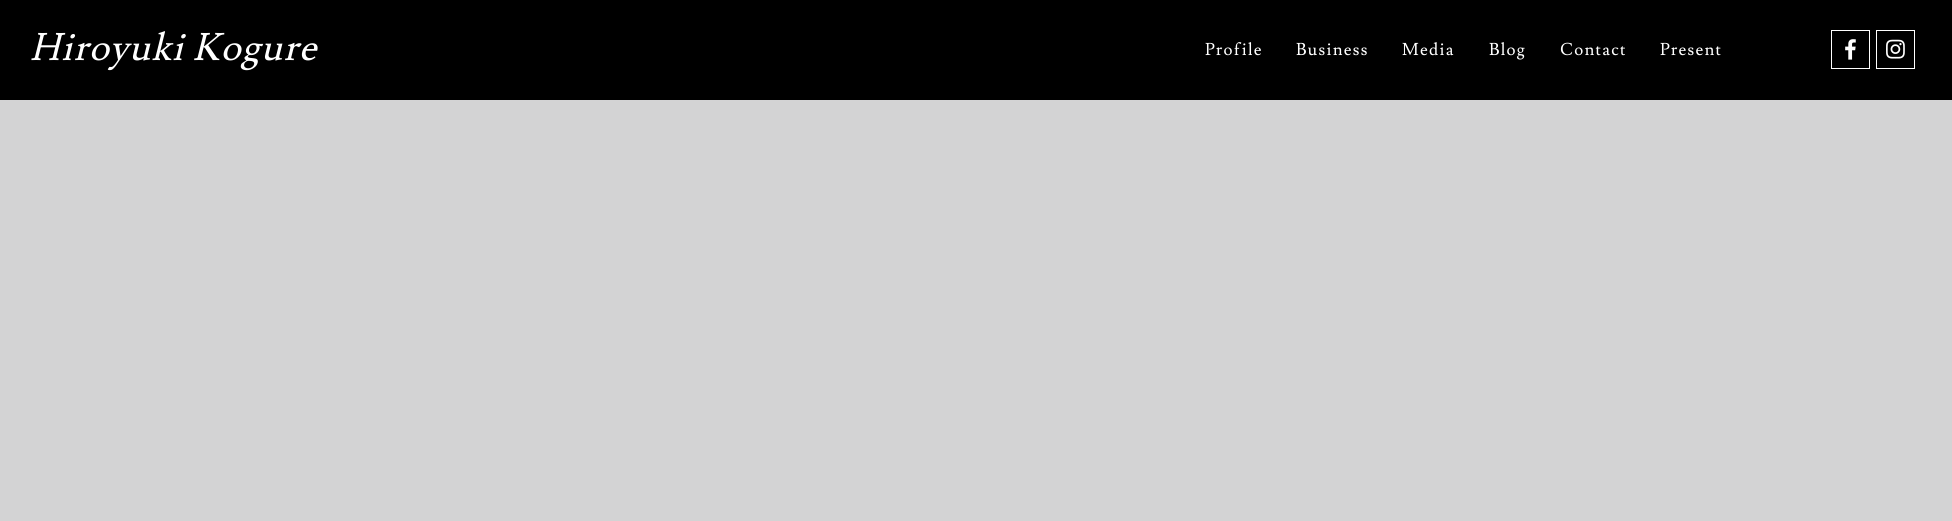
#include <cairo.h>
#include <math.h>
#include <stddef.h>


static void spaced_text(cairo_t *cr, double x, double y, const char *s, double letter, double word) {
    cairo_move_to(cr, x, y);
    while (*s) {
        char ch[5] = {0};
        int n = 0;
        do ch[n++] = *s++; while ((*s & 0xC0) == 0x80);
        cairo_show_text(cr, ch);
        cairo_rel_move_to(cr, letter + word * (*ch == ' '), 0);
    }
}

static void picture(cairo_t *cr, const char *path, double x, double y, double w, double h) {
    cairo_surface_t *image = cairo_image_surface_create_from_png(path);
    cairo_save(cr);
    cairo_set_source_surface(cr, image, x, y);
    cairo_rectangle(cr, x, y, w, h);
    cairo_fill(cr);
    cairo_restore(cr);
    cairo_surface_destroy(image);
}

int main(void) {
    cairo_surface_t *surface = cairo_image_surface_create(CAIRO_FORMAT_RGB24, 1952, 521);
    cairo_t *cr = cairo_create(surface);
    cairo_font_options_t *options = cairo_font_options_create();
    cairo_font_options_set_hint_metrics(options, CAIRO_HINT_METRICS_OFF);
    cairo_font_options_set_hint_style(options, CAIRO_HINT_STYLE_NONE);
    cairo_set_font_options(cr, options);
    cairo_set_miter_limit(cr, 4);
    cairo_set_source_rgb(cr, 0.827, 0.827, 0.831);
    cairo_paint(cr);
    cairo_set_source_rgb(cr, 0, 0, 0);
    cairo_rectangle(cr, 0, 0, 1952, 100);
    cairo_fill(cr);
    cairo_select_font_face(cr, "Lusitana", CAIRO_FONT_SLANT_ITALIC, CAIRO_FONT_WEIGHT_NORMAL);
    cairo_set_font_size(cr, 38);
    cairo_set_source_rgb(cr, 1, 1, 1);
    spaced_text(cr, 30, 60, "Hiroyuki Kogure", 1.1, 0);
    cairo_select_font_face(cr, "Lusitana", CAIRO_FONT_SLANT_NORMAL, CAIRO_FONT_WEIGHT_NORMAL);
    cairo_set_font_size(cr, 17);
    spaced_text(cr, 1205, 55, "Profile", 1.25, 0);
    spaced_text(cr, 1296, 55, "Business", 1.25, 0);
    spaced_text(cr, 1402, 55, "Media", 1.25, 0);
    spaced_text(cr, 1489, 55, "Blog", 1.25, 0);
    spaced_text(cr, 1560, 55, "Contact", 1.25, 0);
    spaced_text(cr, 1660, 55, "Present", 1.25, 0);
    cairo_rectangle(cr, 1831.5, 30.5, 38, 38);
    cairo_set_line_width(cr, 1);
    cairo_stroke(cr);
    picture(cr, "img1.png", 1845, 39, 11, 21);
    cairo_rectangle(cr, 1876.5, 30.5, 38, 38);
    cairo_stroke(cr);
    picture(cr, "img2.png", 1886, 39, 19, 20);
    cairo_surface_write_to_png(surface, "page.png");
    cairo_font_options_destroy(options);
    cairo_destroy(cr);
    cairo_surface_destroy(surface);
    return 0;
}
